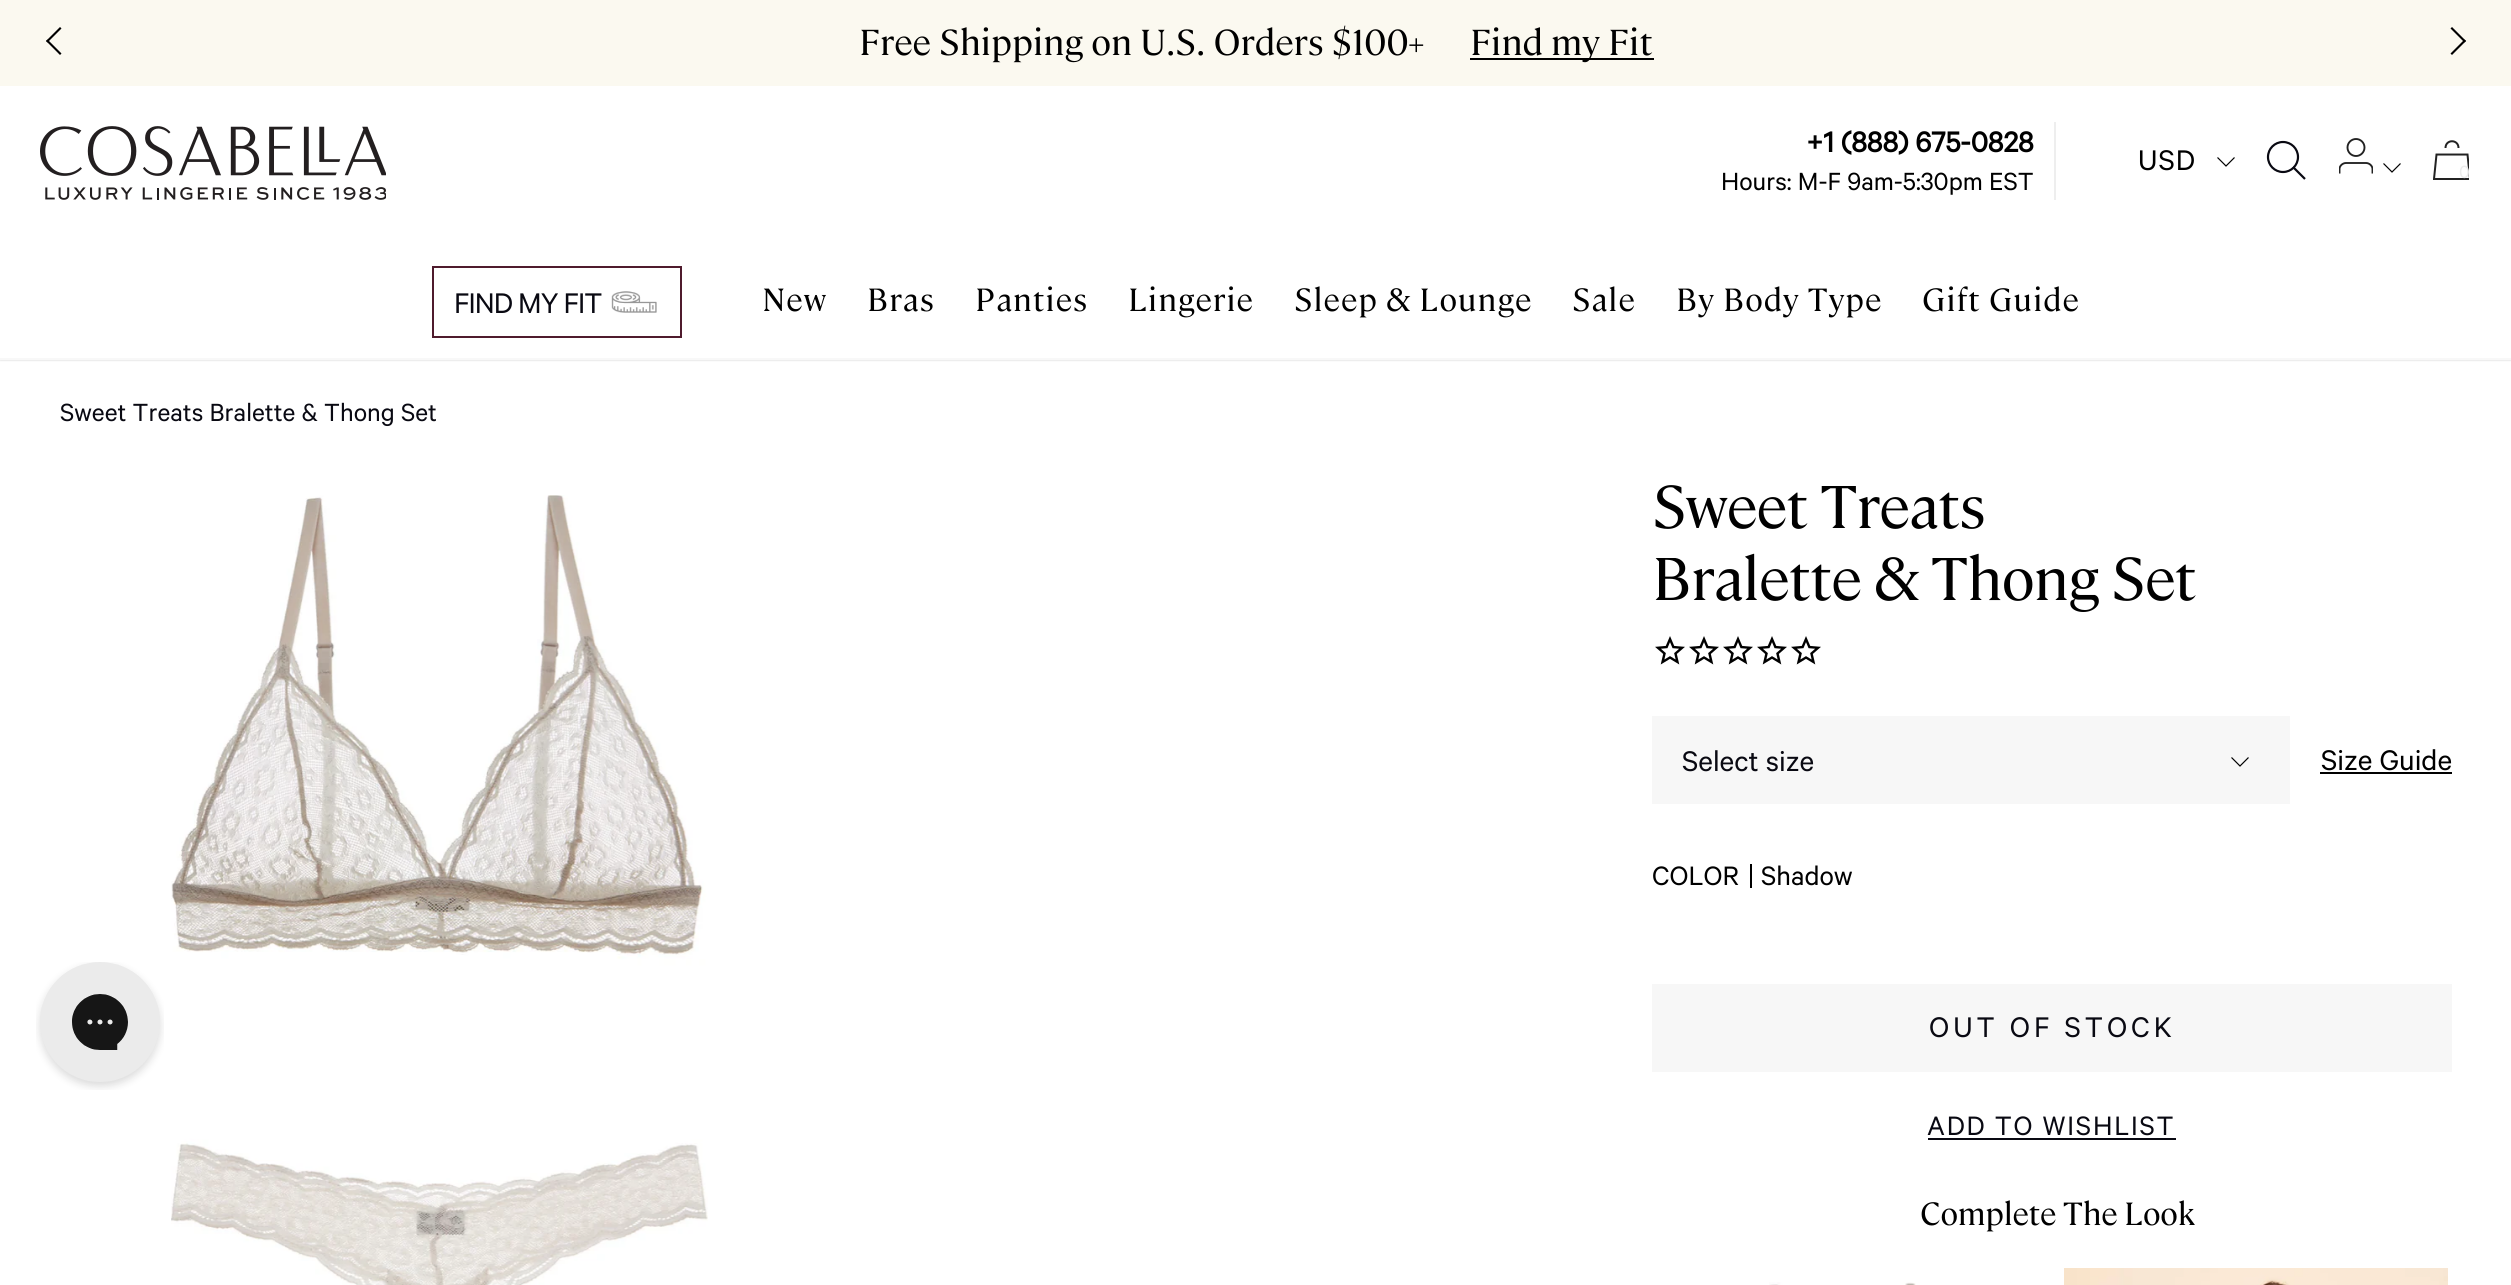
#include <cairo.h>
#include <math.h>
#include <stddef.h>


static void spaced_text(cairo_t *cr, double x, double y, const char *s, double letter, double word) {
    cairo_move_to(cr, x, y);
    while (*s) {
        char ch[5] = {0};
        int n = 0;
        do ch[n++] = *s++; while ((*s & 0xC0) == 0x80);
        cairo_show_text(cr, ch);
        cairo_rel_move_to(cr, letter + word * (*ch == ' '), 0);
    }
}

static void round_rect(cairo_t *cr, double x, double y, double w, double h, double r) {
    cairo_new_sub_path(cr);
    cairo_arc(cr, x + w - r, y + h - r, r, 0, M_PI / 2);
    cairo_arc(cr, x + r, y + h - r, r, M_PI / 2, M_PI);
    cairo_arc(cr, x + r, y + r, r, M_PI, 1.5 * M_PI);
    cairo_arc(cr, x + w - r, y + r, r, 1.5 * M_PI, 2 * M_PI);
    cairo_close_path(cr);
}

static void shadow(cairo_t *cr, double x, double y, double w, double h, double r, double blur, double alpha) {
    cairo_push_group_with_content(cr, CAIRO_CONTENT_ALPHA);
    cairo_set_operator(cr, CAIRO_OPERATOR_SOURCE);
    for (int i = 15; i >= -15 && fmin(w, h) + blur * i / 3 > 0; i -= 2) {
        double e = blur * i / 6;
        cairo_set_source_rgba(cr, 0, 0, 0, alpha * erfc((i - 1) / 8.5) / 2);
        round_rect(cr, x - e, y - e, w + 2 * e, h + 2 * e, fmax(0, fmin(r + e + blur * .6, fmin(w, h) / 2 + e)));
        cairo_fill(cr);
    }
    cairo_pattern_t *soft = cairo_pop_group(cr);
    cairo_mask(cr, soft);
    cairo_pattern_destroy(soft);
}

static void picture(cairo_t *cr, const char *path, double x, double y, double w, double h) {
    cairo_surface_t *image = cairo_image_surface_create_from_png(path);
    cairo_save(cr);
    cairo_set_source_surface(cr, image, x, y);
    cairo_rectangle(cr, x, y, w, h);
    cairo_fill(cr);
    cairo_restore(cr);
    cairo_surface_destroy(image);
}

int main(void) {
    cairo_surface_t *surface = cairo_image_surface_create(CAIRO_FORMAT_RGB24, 2511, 1285);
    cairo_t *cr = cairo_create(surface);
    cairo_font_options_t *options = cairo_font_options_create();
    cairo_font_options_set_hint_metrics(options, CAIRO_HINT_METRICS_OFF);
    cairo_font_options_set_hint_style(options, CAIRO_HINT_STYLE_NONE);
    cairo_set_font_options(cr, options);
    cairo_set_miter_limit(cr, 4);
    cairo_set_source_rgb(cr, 1, 1, 1);
    cairo_paint(cr);
    cairo_save(cr);
    cairo_rectangle(cr, 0, 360, 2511, 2);
    cairo_clip(cr);
    cairo_set_source_rgb(cr, 0.8, 0.8, 0.8);
    shadow(cr, 0, 0, 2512, 360, 0, 1, 1);
    cairo_restore(cr);
    cairo_set_source_rgb(cr, 0.969, 0.969, 0.969);
    cairo_rectangle(cr, 0, 358, 2511, 2);
    cairo_fill(cr);
    cairo_set_source_rgb(cr, 0.984, 0.973, 0.941);
    cairo_rectangle(cr, 0, 0, 2511, 86);
    cairo_fill(cr);
    cairo_set_source_rgb(cr, 0, 0, 0);
    cairo_new_path(cr);
    cairo_move_to(cr, 61.5, 53.5);
    cairo_line_to(cr, 60, 55);
    cairo_line_to(cr, 46, 41);
    cairo_line_to(cr, 47.5, 39.5);
    cairo_close_path(cr);
    cairo_fill(cr);
    cairo_new_path(cr);
    cairo_move_to(cr, 61.5, 28.5);
    cairo_line_to(cr, 47.5, 42.5);
    cairo_line_to(cr, 46, 41);
    cairo_line_to(cr, 60, 27);
    cairo_close_path(cr);
    cairo_fill(cr);
    cairo_select_font_face(cr, "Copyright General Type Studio", CAIRO_FONT_SLANT_NORMAL, CAIRO_FONT_WEIGHT_NORMAL);
    cairo_set_font_size(cr, 36);
    cairo_move_to(cr, 859, 55);
    cairo_show_text(cr, "Free Shipping on U.S. Orders $100+");
    cairo_rectangle(cr, 1470, 58, 184, 2);
    cairo_fill(cr);
    cairo_move_to(cr, 1470, 55);
    cairo_show_text(cr, "Find my Fit");
    cairo_new_path(cr);
    cairo_move_to(cr, 2450.5, 28.5);
    cairo_line_to(cr, 2452, 27);
    cairo_line_to(cr, 2466, 41);
    cairo_line_to(cr, 2464.5, 42.5);
    cairo_close_path(cr);
    cairo_fill(cr);
    cairo_new_path(cr);
    cairo_move_to(cr, 2450.5, 53.5);
    cairo_line_to(cr, 2464.5, 39.5);
    cairo_line_to(cr, 2466, 41);
    cairo_line_to(cr, 2452, 55);
    cairo_close_path(cr);
    cairo_fill(cr);
    picture(cr, "img1.png", 40, 126, 346, 74);
    cairo_set_source_rgb(cr, 0.933, 0.933, 0.933);
    cairo_rectangle(cr, 2054, 122, 2, 78);
    cairo_fill(cr);
    cairo_select_font_face(cr, "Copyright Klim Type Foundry", CAIRO_FONT_SLANT_NORMAL, CAIRO_FONT_WEIGHT_BOLD);
    cairo_set_font_size(cr, 32);
    cairo_set_source_rgb(cr, 0, 0, 0);
    cairo_move_to(cr, 1806, 152);
    cairo_show_text(cr, "+1 (888) 675-0828");
    cairo_select_font_face(cr, "Copyright Klim Type Foundry", CAIRO_FONT_SLANT_NORMAL, CAIRO_FONT_WEIGHT_NORMAL);
    cairo_set_font_size(cr, 28);
    cairo_move_to(cr, 1721, 190);
    cairo_show_text(cr, "Hours: M-F 9am-5:30pm EST");
    cairo_set_font_size(cr, 32);
    spaced_text(cr, 2138, 170, "USD", 1, 0);
    cairo_new_path(cr);
    cairo_move_to(cr, 2217.5, 157.5);
    cairo_line_to(cr, 2226, 166);
    cairo_line_to(cr, 2234.5, 157.5);
    cairo_set_line_width(cr, 1.2);
    cairo_stroke(cr);
    cairo_arc(cr, 2283, 157, 15, 0, 2 * M_PI);
    cairo_set_source_rgb(cr, 0.039, 0.039, 0.071);
    cairo_set_line_width(cr, 2.2);
    cairo_stroke(cr);
    cairo_new_path(cr);
    cairo_move_to(cr, 2293, 167);
    cairo_line_to(cr, 2305, 179);
    cairo_stroke(cr);
    cairo_arc(cr, 2356, 147.5, 8.5, 0, 2 * M_PI);
    cairo_set_source_rgb(cr, 0.133, 0.133, 0.133);
    cairo_set_line_width(cr, 1.9);
    cairo_stroke(cr);
    cairo_save(cr);
    cairo_rectangle(cr, 2339, 138, 34, 40);
    cairo_clip(cr);
    cairo_new_path(cr);
    cairo_move_to(cr, 2372.5, 173.5);
    cairo_line_to(cr, 2372.5, 169);
    cairo_curve_to(cr, 2372.5, 166, 2369.5, 163, 2366, 163);
    cairo_line_to(cr, 2346, 163);
    cairo_curve_to(cr, 2342.5, 163, 2339.5, 166, 2339.5, 169);
    cairo_line_to(cr, 2339.5, 173.5);
    cairo_set_line_join(cr, CAIRO_LINE_JOIN_ROUND);
    cairo_stroke(cr);
    cairo_restore(cr);
    cairo_new_path(cr);
    cairo_move_to(cr, 2383.5, 163.5);
    cairo_line_to(cr, 2392, 172);
    cairo_line_to(cr, 2400.5, 163.5);
    cairo_set_source_rgb(cr, 0, 0, 0);
    cairo_set_line_width(cr, 1.2);
    cairo_stroke(cr);
    cairo_new_path(cr);
    cairo_move_to(cr, 2458.5, 148);
    cairo_curve_to(cr, 2458.5, 139, 2445.5, 139, 2445.5, 148);
    cairo_set_source_rgb(cr, 0.133, 0.133, 0.133);
    cairo_set_line_width(cr, 2);
    cairo_stroke(cr);
    cairo_save(cr);
    cairo_rectangle(cr, 2433, 140, 36, 40);
    cairo_clip(cr);
    cairo_new_path(cr);
    cairo_move_to(cr, 2436.5, 154.5);
    cairo_line_to(cr, 2467.5, 154.5);
    cairo_line_to(cr, 2470, 179);
    cairo_line_to(cr, 2434, 179);
    cairo_close_path(cr);
    cairo_stroke(cr);
    cairo_restore(cr);
    cairo_set_font_size(cr, 20);
    cairo_set_source_rgb(cr, 0.925, 0.925, 0.925);
    cairo_move_to(cr, 2459, 178);
    cairo_show_text(cr, "0");
    cairo_rectangle(cr, 433, 267, 248, 70);
    cairo_set_source_rgb(cr, 0.31, 0.106, 0.176);
    cairo_stroke(cr);
    cairo_set_font_size(cr, 32);
    cairo_set_source_rgb(cr, 0.039, 0.039, 0.071);
    spaced_text(cr, 454, 313, "FIND MY FIT", -1, 0);
    picture(cr, "img2.png", 611, 291, 46, 22);
    cairo_select_font_face(cr, "Copyright General Type Studio", CAIRO_FONT_SLANT_NORMAL, CAIRO_FONT_WEIGHT_NORMAL);
    cairo_set_source_rgb(cr, 0, 0, 0);
    spaced_text(cr, 762, 311, "New", 1, 0);
    spaced_text(cr, 867, 311, "Bras", 1, 0);
    spaced_text(cr, 975, 311, "Panties", 1, 0);
    spaced_text(cr, 1128, 311, "Lingerie", 1, 0);
    spaced_text(cr, 1294, 311, "Sleep & Lounge", 1, 0);
    spaced_text(cr, 1572, 311, "Sale", 1, 0);
    spaced_text(cr, 1676, 311, "By Body Type", 1, 0);
    spaced_text(cr, 1922, 311, "Gift Guide", 1, 0);
    cairo_select_font_face(cr, "Copyright Klim Type Foundry", CAIRO_FONT_SLANT_NORMAL, CAIRO_FONT_WEIGHT_NORMAL);
    cairo_set_font_size(cr, 28);
    cairo_set_source_rgb(cr, 0.039, 0.039, 0.071);
    cairo_move_to(cr, 60, 421);
    cairo_show_text(cr, "Sweet Treats Bralette & Thong Set");
    picture(cr, "img3.png", 171, 495, 537, 790);
    cairo_select_font_face(cr, "Copyright General Type Studio", CAIRO_FONT_SLANT_NORMAL, CAIRO_FONT_WEIGHT_NORMAL);
    cairo_set_font_size(cr, 60);
    cairo_set_source_rgb(cr, 0, 0, 0);
    spaced_text(cr, 1652, 528, "Sweet Treats", -0.8, 0);
    spaced_text(cr, 1652, 600, "Bralette & Thong Set", -0.8, 0);
    picture(cr, "img4.png", 1655, 636, 30, 29);
    picture(cr, "img4.png", 1689, 636, 30, 29);
    picture(cr, "img4.png", 1723, 636, 30, 29);
    picture(cr, "img4.png", 1757, 636, 30, 29);
    picture(cr, "img4.png", 1791, 636, 30, 29);
    cairo_set_source_rgb(cr, 0.965, 0.965, 0.965);
    cairo_rectangle(cr, 1652, 716, 638, 88);
    cairo_fill(cr);
    cairo_select_font_face(cr, "Copyright Klim Type Foundry", CAIRO_FONT_SLANT_NORMAL, CAIRO_FONT_WEIGHT_NORMAL);
    cairo_set_font_size(cr, 32);
    cairo_set_source_rgb(cr, 0.039, 0.039, 0.071);
    cairo_move_to(cr, 1682, 771);
    cairo_show_text(cr, "Select size");
    cairo_new_path(cr);
    cairo_move_to(cr, 2231.5, 757.5);
    cairo_line_to(cr, 2240, 766);
    cairo_line_to(cr, 2248.5, 757.5);
    cairo_set_source_rgb(cr, 0, 0, 0);
    cairo_set_line_width(cr, 1.2);
    cairo_stroke(cr);
    cairo_move_to(cr, 2321, 770);
    cairo_show_text(cr, "Size Guide");
    cairo_rectangle(cr, 2320, 772, 132, 2);
    cairo_fill(cr);
    cairo_rectangle(cr, 1750, 864, 2, 24);
    cairo_fill(cr);
    cairo_set_font_size(cr, 30);
    cairo_move_to(cr, 1652, 885);
    cairo_show_text(cr, "COLOR");
    cairo_move_to(cr, 1761, 885);
    cairo_show_text(cr, "Shadow");
    cairo_set_source_rgb(cr, 0.965, 0.965, 0.965);
    cairo_rectangle(cr, 1652, 984, 800, 88);
    cairo_fill(cr);
    cairo_set_font_size(cr, 32);
    cairo_set_source_rgb(cr, 0.039, 0.039, 0.071);
    spaced_text(cr, 1929, 1037, "OUT OF STOCK", 4, 0);
    cairo_set_font_size(cr, 30);
    spaced_text(cr, 1927, 1135, "ADD TO WISHLIST", 1.75, 0);
    cairo_rectangle(cr, 1928, 1138, 248, 2);
    cairo_fill(cr);
    cairo_select_font_face(cr, "Copyright General Type Studio", CAIRO_FONT_SLANT_NORMAL, CAIRO_FONT_WEIGHT_NORMAL);
    cairo_set_font_size(cr, 32);
    cairo_set_source_rgb(cr, 0, 0, 0);
    spaced_text(cr, 1920, 1225, "Complete The Look", -0.25, 0);
    picture(cr, "img5.png", 1769, 1282, 147, 3);
    picture(cr, "img6.png", 2064, 1268, 384, 17);
    picture(cr, "img7.png", 36, 962, 128, 128);
    cairo_surface_write_to_png(surface, "page.png");
    cairo_font_options_destroy(options);
    cairo_destroy(cr);
    cairo_surface_destroy(surface);
    return 0;
}
